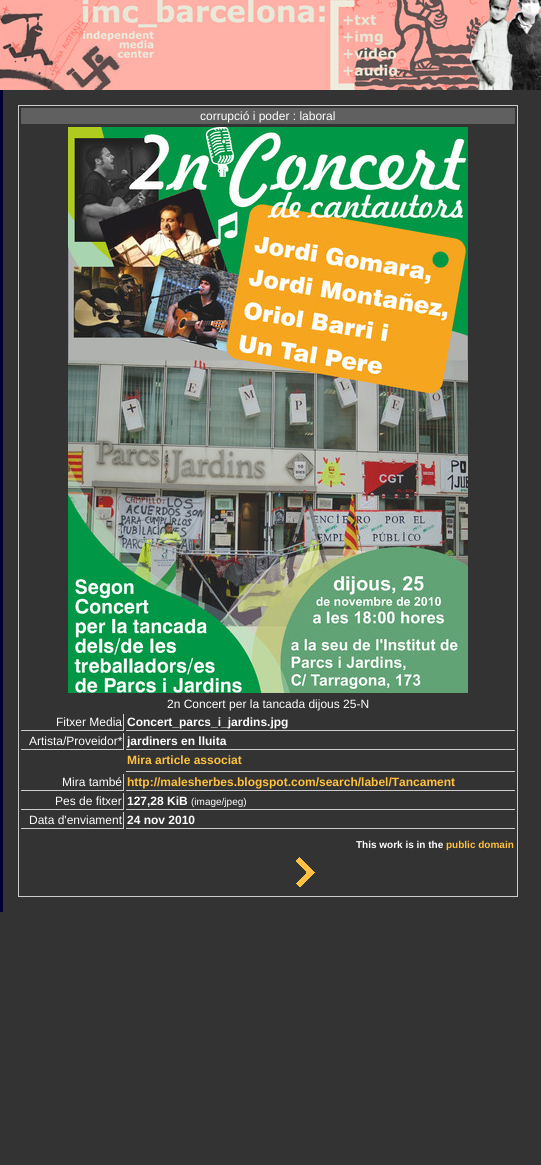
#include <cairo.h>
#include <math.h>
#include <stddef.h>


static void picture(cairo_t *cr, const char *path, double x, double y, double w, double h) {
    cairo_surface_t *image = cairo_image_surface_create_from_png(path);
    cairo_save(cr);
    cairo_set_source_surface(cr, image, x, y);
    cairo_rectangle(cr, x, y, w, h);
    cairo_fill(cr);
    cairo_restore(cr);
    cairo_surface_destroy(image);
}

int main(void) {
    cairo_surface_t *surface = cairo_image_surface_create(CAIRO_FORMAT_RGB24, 541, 1165);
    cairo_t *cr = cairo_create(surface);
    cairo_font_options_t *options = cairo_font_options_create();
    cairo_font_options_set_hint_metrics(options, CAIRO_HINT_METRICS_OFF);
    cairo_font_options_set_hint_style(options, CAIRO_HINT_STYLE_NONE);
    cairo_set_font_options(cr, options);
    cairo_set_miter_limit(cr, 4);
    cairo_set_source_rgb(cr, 0.2, 0.2, 0.2);
    cairo_paint(cr);
    picture(cr, "img1.png", 0, 0, 157, 90);
    picture(cr, "img2.png", 157, 0, 384, 90);
    cairo_set_source_rgb(cr, 0, 0, 0.2);
    cairo_rectangle(cr, 0, 90, 3, 822);
    cairo_fill(cr);
    cairo_rectangle(cr, 18.5, 105.5, 499, 791);
    cairo_set_source_rgb(cr, 0.8, 0.8, 0.8);
    cairo_set_line_width(cr, 1);
    cairo_stroke(cr);
    cairo_set_source_rgb(cr, 0.376, 0.376, 0.376);
    cairo_rectangle(cr, 21, 108, 494, 16);
    cairo_fill(cr);
    cairo_select_font_face(cr, "Liberation Sans", CAIRO_FONT_SLANT_NORMAL, CAIRO_FONT_WEIGHT_NORMAL);
    cairo_set_font_size(cr, 12);
    cairo_set_source_rgb(cr, 1, 1, 1);
    cairo_move_to(cr, 200, 120);
    cairo_show_text(cr, "corrupció i poder : laboral");
    picture(cr, "img3.png", 68, 127, 400, 566);
    cairo_move_to(cr, 167, 708);
    cairo_show_text(cr, "2n Concert per la tancada dijous 25-N");
    cairo_set_source_rgb(cr, 0.8, 0.8, 0.8);
    cairo_rectangle(cr, 123, 714, 1, 17);
    cairo_fill(cr);
    cairo_rectangle(cr, 21, 730, 103, 1);
    cairo_fill(cr);
    cairo_set_source_rgb(cr, 1, 1, 1);
    cairo_move_to(cr, 56, 726);
    cairo_show_text(cr, "Fitxer Media");
    cairo_set_source_rgb(cr, 0.8, 0.8, 0.8);
    cairo_rectangle(cr, 126, 730, 389, 1);
    cairo_fill(cr);
    cairo_select_font_face(cr, "Liberation Sans", CAIRO_FONT_SLANT_NORMAL, CAIRO_FONT_WEIGHT_BOLD);
    cairo_set_source_rgb(cr, 1, 1, 1);
    cairo_move_to(cr, 127, 726);
    cairo_show_text(cr, "Concert_parcs_i_jardins.jpg");
    cairo_set_source_rgb(cr, 0.8, 0.8, 0.8);
    cairo_rectangle(cr, 123, 733, 1, 17);
    cairo_fill(cr);
    cairo_rectangle(cr, 21, 749, 103, 1);
    cairo_fill(cr);
    cairo_select_font_face(cr, "Liberation Sans", CAIRO_FONT_SLANT_NORMAL, CAIRO_FONT_WEIGHT_NORMAL);
    cairo_set_source_rgb(cr, 1, 1, 1);
    cairo_move_to(cr, 29, 745);
    cairo_show_text(cr, "Artista/Proveidor*");
    cairo_set_source_rgb(cr, 0.8, 0.8, 0.8);
    cairo_rectangle(cr, 126, 749, 389, 1);
    cairo_fill(cr);
    cairo_select_font_face(cr, "Liberation Sans", CAIRO_FONT_SLANT_NORMAL, CAIRO_FONT_WEIGHT_BOLD);
    cairo_set_source_rgb(cr, 1, 1, 1);
    cairo_move_to(cr, 127, 745);
    cairo_show_text(cr, "jardiners en lluita");
    cairo_set_source_rgb(cr, 0.8, 0.8, 0.8);
    cairo_rectangle(cr, 126, 771, 389, 1);
    cairo_fill(cr);
    cairo_set_source_rgb(cr, 1, 0.757, 0.251);
    cairo_move_to(cr, 127, 764);
    cairo_show_text(cr, "Mira article associat");
    cairo_set_source_rgb(cr, 0.8, 0.8, 0.8);
    cairo_rectangle(cr, 123, 774, 1, 17);
    cairo_fill(cr);
    cairo_rectangle(cr, 21, 790, 103, 1);
    cairo_fill(cr);
    cairo_select_font_face(cr, "Liberation Sans", CAIRO_FONT_SLANT_NORMAL, CAIRO_FONT_WEIGHT_NORMAL);
    cairo_set_source_rgb(cr, 1, 1, 1);
    cairo_move_to(cr, 62, 786);
    cairo_show_text(cr, "Mira també");
    cairo_set_source_rgb(cr, 0.8, 0.8, 0.8);
    cairo_rectangle(cr, 126, 790, 389, 1);
    cairo_fill(cr);
    cairo_select_font_face(cr, "Liberation Sans", CAIRO_FONT_SLANT_NORMAL, CAIRO_FONT_WEIGHT_BOLD);
    cairo_set_source_rgb(cr, 1, 0.757, 0.251);
    cairo_move_to(cr, 127, 786);
    cairo_show_text(cr, "http://malesherbes.blogspot.com/search/label/Tancament");
    cairo_set_source_rgb(cr, 0.8, 0.8, 0.8);
    cairo_rectangle(cr, 123, 793, 1, 17);
    cairo_fill(cr);
    cairo_rectangle(cr, 21, 809, 103, 1);
    cairo_fill(cr);
    cairo_select_font_face(cr, "Liberation Sans", CAIRO_FONT_SLANT_NORMAL, CAIRO_FONT_WEIGHT_NORMAL);
    cairo_set_source_rgb(cr, 1, 1, 1);
    cairo_move_to(cr, 55, 805);
    cairo_show_text(cr, "Pes de fitxer");
    cairo_set_source_rgb(cr, 0.8, 0.8, 0.8);
    cairo_rectangle(cr, 126, 809, 389, 1);
    cairo_fill(cr);
    cairo_select_font_face(cr, "Liberation Sans", CAIRO_FONT_SLANT_NORMAL, CAIRO_FONT_WEIGHT_BOLD);
    cairo_set_source_rgb(cr, 1, 1, 1);
    cairo_move_to(cr, 127, 805);
    cairo_show_text(cr, "127,28 KiB");
    cairo_select_font_face(cr, "Liberation Sans", CAIRO_FONT_SLANT_NORMAL, CAIRO_FONT_WEIGHT_NORMAL);
    cairo_set_font_size(cr, 10);
    cairo_move_to(cr, 191, 805);
    cairo_show_text(cr, "(image/jpeg)");
    cairo_set_source_rgb(cr, 0.8, 0.8, 0.8);
    cairo_rectangle(cr, 123, 812, 1, 17);
    cairo_fill(cr);
    cairo_rectangle(cr, 21, 828, 103, 1);
    cairo_fill(cr);
    cairo_set_font_size(cr, 12);
    cairo_set_source_rgb(cr, 1, 1, 1);
    cairo_move_to(cr, 29, 824);
    cairo_show_text(cr, "Data d'enviament");
    cairo_set_source_rgb(cr, 0.8, 0.8, 0.8);
    cairo_rectangle(cr, 126, 828, 389, 1);
    cairo_fill(cr);
    cairo_select_font_face(cr, "Liberation Sans", CAIRO_FONT_SLANT_NORMAL, CAIRO_FONT_WEIGHT_BOLD);
    cairo_set_source_rgb(cr, 1, 1, 1);
    cairo_move_to(cr, 127, 824);
    cairo_show_text(cr, "24 nov 2010");
    cairo_set_font_size(cr, 10);
    cairo_move_to(cr, 356, 848);
    cairo_show_text(cr, "This work is in the");
    cairo_set_source_rgb(cr, 1, 0.757, 0.251);
    cairo_move_to(cr, 446, 848);
    cairo_show_text(cr, "public domain");
    picture(cr, "img4.png", 296, 857, 19, 30);
    cairo_surface_write_to_png(surface, "page.png");
    cairo_font_options_destroy(options);
    cairo_destroy(cr);
    cairo_surface_destroy(surface);
    return 0;
}
